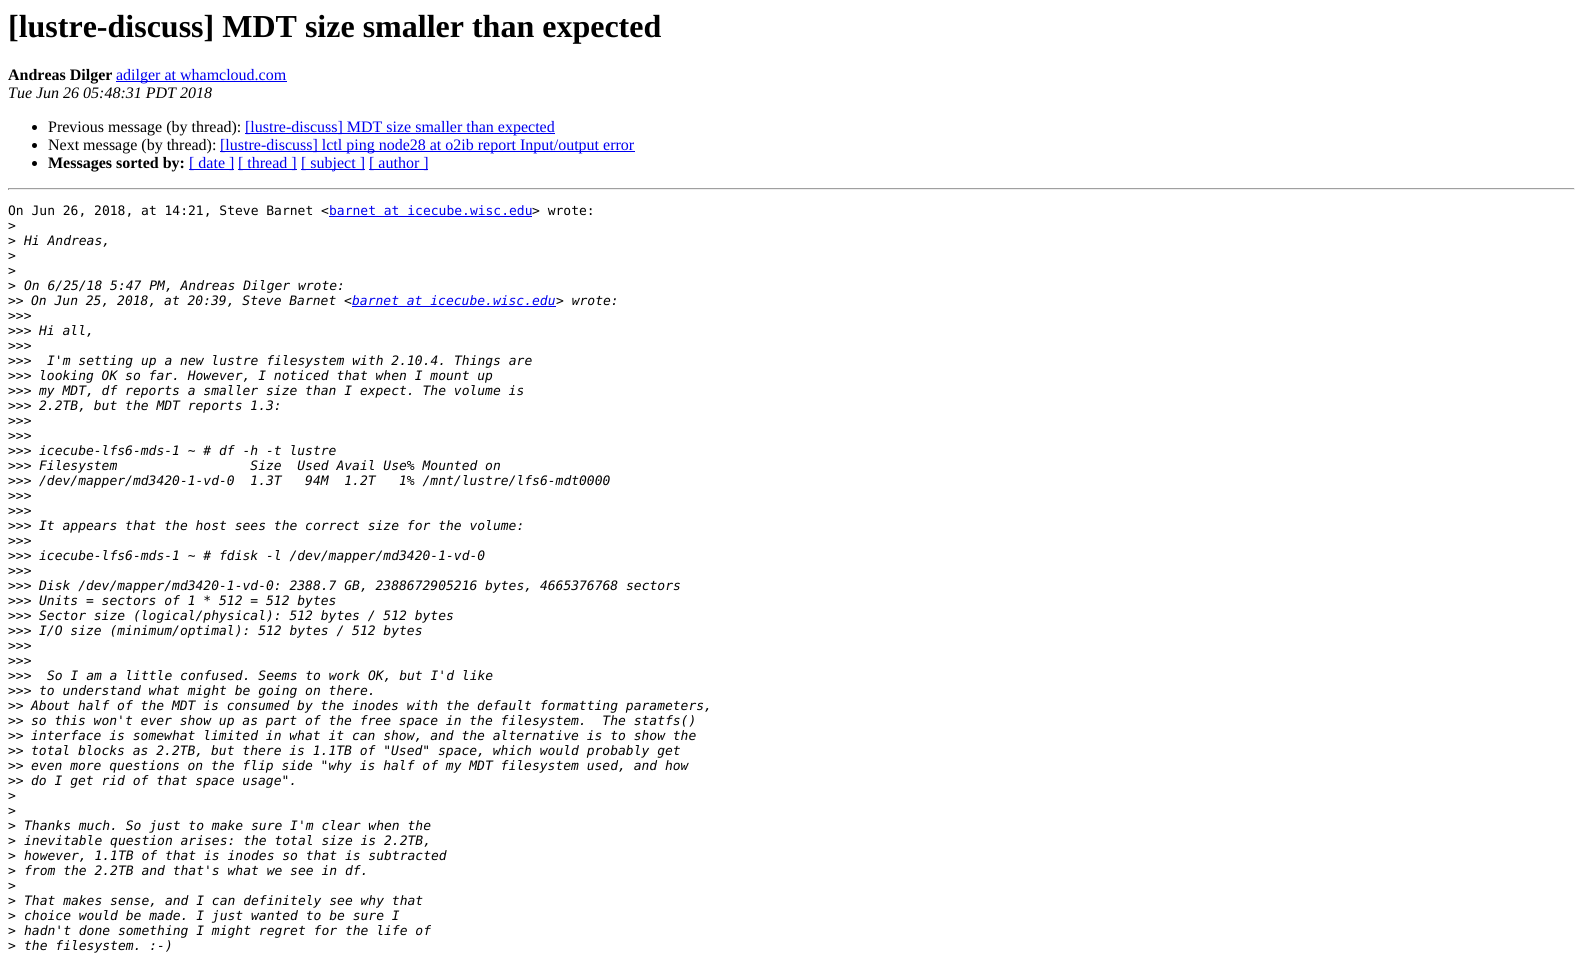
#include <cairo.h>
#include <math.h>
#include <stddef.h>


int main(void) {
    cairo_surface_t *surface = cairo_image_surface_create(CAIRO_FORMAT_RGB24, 1583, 956);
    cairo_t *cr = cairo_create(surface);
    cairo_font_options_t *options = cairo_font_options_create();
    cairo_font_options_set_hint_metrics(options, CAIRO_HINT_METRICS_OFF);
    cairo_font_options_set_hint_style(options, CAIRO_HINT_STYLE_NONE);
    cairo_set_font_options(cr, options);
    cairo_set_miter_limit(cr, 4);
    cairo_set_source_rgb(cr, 1, 1, 1);
    cairo_paint(cr);
    cairo_select_font_face(cr, "Liberation Serif", CAIRO_FONT_SLANT_NORMAL, CAIRO_FONT_WEIGHT_BOLD);
    cairo_set_font_size(cr, 32);
    cairo_set_source_rgb(cr, 0, 0, 0);
    cairo_move_to(cr, 8, 37);
    cairo_show_text(cr, "[lustre-discuss] MDT size smaller than expected");
    cairo_set_font_size(cr, 16);
    cairo_move_to(cr, 8, 80);
    cairo_show_text(cr, "Andreas Dilger");
    cairo_set_source_rgb(cr, 0, 0, 0.933);
    cairo_rectangle(cr, 116, 81, 171, 1);
    cairo_fill(cr);
    cairo_select_font_face(cr, "Liberation Serif", CAIRO_FONT_SLANT_NORMAL, CAIRO_FONT_WEIGHT_NORMAL);
    cairo_move_to(cr, 116, 80);
    cairo_show_text(cr, "adilger at whamcloud.com");
    cairo_select_font_face(cr, "Liberation Serif", CAIRO_FONT_SLANT_ITALIC, CAIRO_FONT_WEIGHT_NORMAL);
    cairo_set_source_rgb(cr, 0, 0, 0);
    cairo_move_to(cr, 8, 98);
    cairo_show_text(cr, "Tue Jun 26 05:48:31 PDT 2018");
    cairo_new_path(cr);
    cairo_arc(cr, 34.5, 127.5, 2.5, 0, 2 * M_PI);
    cairo_fill(cr);
    cairo_select_font_face(cr, "Liberation Serif", CAIRO_FONT_SLANT_NORMAL, CAIRO_FONT_WEIGHT_NORMAL);
    cairo_move_to(cr, 48, 132);
    cairo_show_text(cr, "Previous message (by thread):");
    cairo_set_source_rgb(cr, 0, 0, 0.933);
    cairo_rectangle(cr, 245, 133, 310, 1);
    cairo_fill(cr);
    cairo_move_to(cr, 245, 132);
    cairo_show_text(cr, "[lustre-discuss] MDT size smaller than expected");
    cairo_set_source_rgb(cr, 0, 0, 0);
    cairo_new_path(cr);
    cairo_arc(cr, 34.5, 145.5, 2.5, 0, 2 * M_PI);
    cairo_fill(cr);
    cairo_move_to(cr, 48, 150);
    cairo_show_text(cr, "Next message (by thread):");
    cairo_set_source_rgb(cr, 0, 0, 0.933);
    cairo_rectangle(cr, 220, 151, 415, 1);
    cairo_fill(cr);
    cairo_move_to(cr, 220, 150);
    cairo_show_text(cr, "[lustre-discuss] lctl ping node28 at o2ib report Input/output error");
    cairo_set_source_rgb(cr, 0, 0, 0);
    cairo_new_path(cr);
    cairo_arc(cr, 34.5, 163.5, 2.5, 0, 2 * M_PI);
    cairo_fill(cr);
    cairo_select_font_face(cr, "Liberation Serif", CAIRO_FONT_SLANT_NORMAL, CAIRO_FONT_WEIGHT_BOLD);
    cairo_move_to(cr, 48, 168);
    cairo_show_text(cr, "Messages sorted by:");
    cairo_set_source_rgb(cr, 0, 0, 0.933);
    cairo_rectangle(cr, 189, 169, 45, 1);
    cairo_fill(cr);
    cairo_select_font_face(cr, "Liberation Serif", CAIRO_FONT_SLANT_NORMAL, CAIRO_FONT_WEIGHT_NORMAL);
    cairo_move_to(cr, 189, 168);
    cairo_show_text(cr, "[ date ]");
    cairo_rectangle(cr, 238, 169, 59, 1);
    cairo_fill(cr);
    cairo_move_to(cr, 238, 168);
    cairo_show_text(cr, "[ thread ]");
    cairo_rectangle(cr, 301, 169, 64, 1);
    cairo_fill(cr);
    cairo_move_to(cr, 301, 168);
    cairo_show_text(cr, "[ subject ]");
    cairo_rectangle(cr, 369, 169, 59, 1);
    cairo_fill(cr);
    cairo_move_to(cr, 369, 168);
    cairo_show_text(cr, "[ author ]");
    cairo_set_source_rgb(cr, 0.624, 0.624, 0.624);
    cairo_rectangle(cr, 8, 188, 1567, 1);
    cairo_fill(cr);
    cairo_set_source_rgb(cr, 0.933, 0.933, 0.933);
    cairo_rectangle(cr, 1574, 188, 1, 2);
    cairo_fill(cr);
    cairo_rectangle(cr, 8, 189, 1567, 1);
    cairo_fill(cr);
    cairo_set_source_rgb(cr, 0.624, 0.624, 0.624);
    cairo_rectangle(cr, 8, 188, 1, 2);
    cairo_fill(cr);
    cairo_select_font_face(cr, "DejaVu Sans Mono", CAIRO_FONT_SLANT_NORMAL, CAIRO_FONT_WEIGHT_NORMAL);
    cairo_set_font_size(cr, 13);
    cairo_set_source_rgb(cr, 0, 0, 0);
    cairo_move_to(cr, 8, 215);
    cairo_show_text(cr, "On Jun 26, 2018, at 14:21, Steve Barnet <");
    cairo_set_source_rgb(cr, 0, 0, 0.933);
    cairo_move_to(cr, 329, 215);
    cairo_show_text(cr, "barnet at icecube.wisc.edu");
    cairo_rectangle(cr, 329, 216, 203, 1);
    cairo_fill(cr);
    cairo_set_source_rgb(cr, 0, 0, 0);
    cairo_move_to(cr, 532, 215);
    cairo_show_text(cr, "> wrote:");
    cairo_move_to(cr, 8, 230);
    cairo_show_text(cr, ">");
    cairo_move_to(cr, 8, 245);
    cairo_show_text(cr, ">");
    cairo_select_font_face(cr, "DejaVu Sans Mono", CAIRO_FONT_SLANT_ITALIC, CAIRO_FONT_WEIGHT_NORMAL);
    cairo_move_to(cr, 24, 245);
    cairo_show_text(cr, "Hi Andreas,");
    cairo_select_font_face(cr, "DejaVu Sans Mono", CAIRO_FONT_SLANT_NORMAL, CAIRO_FONT_WEIGHT_NORMAL);
    cairo_move_to(cr, 8, 260);
    cairo_show_text(cr, ">");
    cairo_move_to(cr, 8, 275);
    cairo_show_text(cr, ">");
    cairo_move_to(cr, 8, 290);
    cairo_show_text(cr, ">");
    cairo_select_font_face(cr, "DejaVu Sans Mono", CAIRO_FONT_SLANT_ITALIC, CAIRO_FONT_WEIGHT_NORMAL);
    cairo_move_to(cr, 24, 290);
    cairo_show_text(cr, "On 6/25/18 5:47 PM, Andreas Dilger wrote:");
    cairo_select_font_face(cr, "DejaVu Sans Mono", CAIRO_FONT_SLANT_NORMAL, CAIRO_FONT_WEIGHT_NORMAL);
    cairo_move_to(cr, 8, 305);
    cairo_show_text(cr, ">>");
    cairo_select_font_face(cr, "DejaVu Sans Mono", CAIRO_FONT_SLANT_ITALIC, CAIRO_FONT_WEIGHT_NORMAL);
    cairo_move_to(cr, 31, 305);
    cairo_show_text(cr, "On Jun 25, 2018, at 20:39, Steve Barnet <");
    cairo_set_source_rgb(cr, 0, 0, 0.933);
    cairo_rectangle(cr, 352, 306, 204, 1);
    cairo_fill(cr);
    cairo_move_to(cr, 352, 305);
    cairo_show_text(cr, "barnet at icecube.wisc.edu");
    cairo_set_source_rgb(cr, 0, 0, 0);
    cairo_move_to(cr, 556, 305);
    cairo_show_text(cr, "> wrote:");
    cairo_select_font_face(cr, "DejaVu Sans Mono", CAIRO_FONT_SLANT_NORMAL, CAIRO_FONT_WEIGHT_NORMAL);
    cairo_move_to(cr, 8, 320);
    cairo_show_text(cr, ">>>");
    cairo_move_to(cr, 8, 335);
    cairo_show_text(cr, ">>>");
    cairo_select_font_face(cr, "DejaVu Sans Mono", CAIRO_FONT_SLANT_ITALIC, CAIRO_FONT_WEIGHT_NORMAL);
    cairo_move_to(cr, 39, 335);
    cairo_show_text(cr, "Hi all,");
    cairo_select_font_face(cr, "DejaVu Sans Mono", CAIRO_FONT_SLANT_NORMAL, CAIRO_FONT_WEIGHT_NORMAL);
    cairo_move_to(cr, 8, 350);
    cairo_show_text(cr, ">>>");
    cairo_move_to(cr, 8, 365);
    cairo_show_text(cr, ">>>");
    cairo_select_font_face(cr, "DejaVu Sans Mono", CAIRO_FONT_SLANT_ITALIC, CAIRO_FONT_WEIGHT_NORMAL);
    cairo_move_to(cr, 47, 365);
    cairo_show_text(cr, "I'm setting up a new lustre filesystem with 2.10.4. Things are");
    cairo_select_font_face(cr, "DejaVu Sans Mono", CAIRO_FONT_SLANT_NORMAL, CAIRO_FONT_WEIGHT_NORMAL);
    cairo_move_to(cr, 8, 380);
    cairo_show_text(cr, ">>>");
    cairo_select_font_face(cr, "DejaVu Sans Mono", CAIRO_FONT_SLANT_ITALIC, CAIRO_FONT_WEIGHT_NORMAL);
    cairo_move_to(cr, 39, 380);
    cairo_show_text(cr, "looking OK so far. However, I noticed that when I mount up");
    cairo_select_font_face(cr, "DejaVu Sans Mono", CAIRO_FONT_SLANT_NORMAL, CAIRO_FONT_WEIGHT_NORMAL);
    cairo_move_to(cr, 8, 395);
    cairo_show_text(cr, ">>>");
    cairo_select_font_face(cr, "DejaVu Sans Mono", CAIRO_FONT_SLANT_ITALIC, CAIRO_FONT_WEIGHT_NORMAL);
    cairo_move_to(cr, 39, 395);
    cairo_show_text(cr, "my MDT, df reports a smaller size than I expect. The volume is");
    cairo_select_font_face(cr, "DejaVu Sans Mono", CAIRO_FONT_SLANT_NORMAL, CAIRO_FONT_WEIGHT_NORMAL);
    cairo_move_to(cr, 8, 410);
    cairo_show_text(cr, ">>>");
    cairo_select_font_face(cr, "DejaVu Sans Mono", CAIRO_FONT_SLANT_ITALIC, CAIRO_FONT_WEIGHT_NORMAL);
    cairo_move_to(cr, 39, 410);
    cairo_show_text(cr, "2.2TB, but the MDT reports 1.3:");
    cairo_select_font_face(cr, "DejaVu Sans Mono", CAIRO_FONT_SLANT_NORMAL, CAIRO_FONT_WEIGHT_NORMAL);
    cairo_move_to(cr, 8, 425);
    cairo_show_text(cr, ">>>");
    cairo_move_to(cr, 8, 440);
    cairo_show_text(cr, ">>>");
    cairo_move_to(cr, 8, 455);
    cairo_show_text(cr, ">>>");
    cairo_select_font_face(cr, "DejaVu Sans Mono", CAIRO_FONT_SLANT_ITALIC, CAIRO_FONT_WEIGHT_NORMAL);
    cairo_move_to(cr, 39, 455);
    cairo_show_text(cr, "icecube-lfs6-mds-1 ~ # df -h -t lustre");
    cairo_select_font_face(cr, "DejaVu Sans Mono", CAIRO_FONT_SLANT_NORMAL, CAIRO_FONT_WEIGHT_NORMAL);
    cairo_move_to(cr, 8, 470);
    cairo_show_text(cr, ">>>");
    cairo_select_font_face(cr, "DejaVu Sans Mono", CAIRO_FONT_SLANT_ITALIC, CAIRO_FONT_WEIGHT_NORMAL);
    cairo_move_to(cr, 39, 470);
    cairo_show_text(cr, "Filesystem                 Size  Used Avail Use% Mounted on");
    cairo_select_font_face(cr, "DejaVu Sans Mono", CAIRO_FONT_SLANT_NORMAL, CAIRO_FONT_WEIGHT_NORMAL);
    cairo_move_to(cr, 8, 485);
    cairo_show_text(cr, ">>>");
    cairo_select_font_face(cr, "DejaVu Sans Mono", CAIRO_FONT_SLANT_ITALIC, CAIRO_FONT_WEIGHT_NORMAL);
    cairo_move_to(cr, 39, 485);
    cairo_show_text(cr, "/dev/mapper/md3420-1-vd-0  1.3T   94M  1.2T   1% /mnt/lustre/lfs6-mdt0000");
    cairo_select_font_face(cr, "DejaVu Sans Mono", CAIRO_FONT_SLANT_NORMAL, CAIRO_FONT_WEIGHT_NORMAL);
    cairo_move_to(cr, 8, 500);
    cairo_show_text(cr, ">>>");
    cairo_move_to(cr, 8, 515);
    cairo_show_text(cr, ">>>");
    cairo_move_to(cr, 8, 530);
    cairo_show_text(cr, ">>>");
    cairo_select_font_face(cr, "DejaVu Sans Mono", CAIRO_FONT_SLANT_ITALIC, CAIRO_FONT_WEIGHT_NORMAL);
    cairo_move_to(cr, 39, 530);
    cairo_show_text(cr, "It appears that the host sees the correct size for the volume:");
    cairo_select_font_face(cr, "DejaVu Sans Mono", CAIRO_FONT_SLANT_NORMAL, CAIRO_FONT_WEIGHT_NORMAL);
    cairo_move_to(cr, 8, 545);
    cairo_show_text(cr, ">>>");
    cairo_move_to(cr, 8, 560);
    cairo_show_text(cr, ">>>");
    cairo_select_font_face(cr, "DejaVu Sans Mono", CAIRO_FONT_SLANT_ITALIC, CAIRO_FONT_WEIGHT_NORMAL);
    cairo_move_to(cr, 39, 560);
    cairo_show_text(cr, "icecube-lfs6-mds-1 ~ # fdisk -l /dev/mapper/md3420-1-vd-0");
    cairo_select_font_face(cr, "DejaVu Sans Mono", CAIRO_FONT_SLANT_NORMAL, CAIRO_FONT_WEIGHT_NORMAL);
    cairo_move_to(cr, 8, 575);
    cairo_show_text(cr, ">>>");
    cairo_move_to(cr, 8, 590);
    cairo_show_text(cr, ">>>");
    cairo_select_font_face(cr, "DejaVu Sans Mono", CAIRO_FONT_SLANT_ITALIC, CAIRO_FONT_WEIGHT_NORMAL);
    cairo_move_to(cr, 39, 590);
    cairo_show_text(cr, "Disk /dev/mapper/md3420-1-vd-0: 2388.7 GB, 2388672905216 bytes, 4665376768 sectors");
    cairo_select_font_face(cr, "DejaVu Sans Mono", CAIRO_FONT_SLANT_NORMAL, CAIRO_FONT_WEIGHT_NORMAL);
    cairo_move_to(cr, 8, 605);
    cairo_show_text(cr, ">>>");
    cairo_select_font_face(cr, "DejaVu Sans Mono", CAIRO_FONT_SLANT_ITALIC, CAIRO_FONT_WEIGHT_NORMAL);
    cairo_move_to(cr, 39, 605);
    cairo_show_text(cr, "Units = sectors of 1 * 512 = 512 bytes");
    cairo_select_font_face(cr, "DejaVu Sans Mono", CAIRO_FONT_SLANT_NORMAL, CAIRO_FONT_WEIGHT_NORMAL);
    cairo_move_to(cr, 8, 620);
    cairo_show_text(cr, ">>>");
    cairo_select_font_face(cr, "DejaVu Sans Mono", CAIRO_FONT_SLANT_ITALIC, CAIRO_FONT_WEIGHT_NORMAL);
    cairo_move_to(cr, 39, 620);
    cairo_show_text(cr, "Sector size (logical/physical): 512 bytes / 512 bytes");
    cairo_select_font_face(cr, "DejaVu Sans Mono", CAIRO_FONT_SLANT_NORMAL, CAIRO_FONT_WEIGHT_NORMAL);
    cairo_move_to(cr, 8, 635);
    cairo_show_text(cr, ">>>");
    cairo_select_font_face(cr, "DejaVu Sans Mono", CAIRO_FONT_SLANT_ITALIC, CAIRO_FONT_WEIGHT_NORMAL);
    cairo_move_to(cr, 39, 635);
    cairo_show_text(cr, "I/O size (minimum/optimal): 512 bytes / 512 bytes");
    cairo_select_font_face(cr, "DejaVu Sans Mono", CAIRO_FONT_SLANT_NORMAL, CAIRO_FONT_WEIGHT_NORMAL);
    cairo_move_to(cr, 8, 650);
    cairo_show_text(cr, ">>>");
    cairo_move_to(cr, 8, 665);
    cairo_show_text(cr, ">>>");
    cairo_move_to(cr, 8, 680);
    cairo_show_text(cr, ">>>");
    cairo_select_font_face(cr, "DejaVu Sans Mono", CAIRO_FONT_SLANT_ITALIC, CAIRO_FONT_WEIGHT_NORMAL);
    cairo_move_to(cr, 47, 680);
    cairo_show_text(cr, "So I am a little confused. Seems to work OK, but I'd like");
    cairo_select_font_face(cr, "DejaVu Sans Mono", CAIRO_FONT_SLANT_NORMAL, CAIRO_FONT_WEIGHT_NORMAL);
    cairo_move_to(cr, 8, 695);
    cairo_show_text(cr, ">>>");
    cairo_select_font_face(cr, "DejaVu Sans Mono", CAIRO_FONT_SLANT_ITALIC, CAIRO_FONT_WEIGHT_NORMAL);
    cairo_move_to(cr, 39, 695);
    cairo_show_text(cr, "to understand what might be going on there.");
    cairo_select_font_face(cr, "DejaVu Sans Mono", CAIRO_FONT_SLANT_NORMAL, CAIRO_FONT_WEIGHT_NORMAL);
    cairo_move_to(cr, 8, 710);
    cairo_show_text(cr, ">>");
    cairo_select_font_face(cr, "DejaVu Sans Mono", CAIRO_FONT_SLANT_ITALIC, CAIRO_FONT_WEIGHT_NORMAL);
    cairo_move_to(cr, 31, 710);
    cairo_show_text(cr, "About half of the MDT is consumed by the inodes with the default formatting parameters,");
    cairo_select_font_face(cr, "DejaVu Sans Mono", CAIRO_FONT_SLANT_NORMAL, CAIRO_FONT_WEIGHT_NORMAL);
    cairo_move_to(cr, 8, 725);
    cairo_show_text(cr, ">>");
    cairo_select_font_face(cr, "DejaVu Sans Mono", CAIRO_FONT_SLANT_ITALIC, CAIRO_FONT_WEIGHT_NORMAL);
    cairo_move_to(cr, 31, 725);
    cairo_show_text(cr, "so this won't ever show up as part of the free space in the filesystem.  The statfs()");
    cairo_select_font_face(cr, "DejaVu Sans Mono", CAIRO_FONT_SLANT_NORMAL, CAIRO_FONT_WEIGHT_NORMAL);
    cairo_move_to(cr, 8, 740);
    cairo_show_text(cr, ">>");
    cairo_select_font_face(cr, "DejaVu Sans Mono", CAIRO_FONT_SLANT_ITALIC, CAIRO_FONT_WEIGHT_NORMAL);
    cairo_move_to(cr, 31, 740);
    cairo_show_text(cr, "interface is somewhat limited in what it can show, and the alternative is to show the");
    cairo_select_font_face(cr, "DejaVu Sans Mono", CAIRO_FONT_SLANT_NORMAL, CAIRO_FONT_WEIGHT_NORMAL);
    cairo_move_to(cr, 8, 755);
    cairo_show_text(cr, ">>");
    cairo_select_font_face(cr, "DejaVu Sans Mono", CAIRO_FONT_SLANT_ITALIC, CAIRO_FONT_WEIGHT_NORMAL);
    cairo_move_to(cr, 31, 755);
    cairo_show_text(cr, "total blocks as 2.2TB, but there is 1.1TB of \"Used\" space, which would probably get");
    cairo_select_font_face(cr, "DejaVu Sans Mono", CAIRO_FONT_SLANT_NORMAL, CAIRO_FONT_WEIGHT_NORMAL);
    cairo_move_to(cr, 8, 770);
    cairo_show_text(cr, ">>");
    cairo_select_font_face(cr, "DejaVu Sans Mono", CAIRO_FONT_SLANT_ITALIC, CAIRO_FONT_WEIGHT_NORMAL);
    cairo_move_to(cr, 31, 770);
    cairo_show_text(cr, "even more questions on the flip side \"why is half of my MDT filesystem used, and how");
    cairo_select_font_face(cr, "DejaVu Sans Mono", CAIRO_FONT_SLANT_NORMAL, CAIRO_FONT_WEIGHT_NORMAL);
    cairo_move_to(cr, 8, 785);
    cairo_show_text(cr, ">>");
    cairo_select_font_face(cr, "DejaVu Sans Mono", CAIRO_FONT_SLANT_ITALIC, CAIRO_FONT_WEIGHT_NORMAL);
    cairo_move_to(cr, 31, 785);
    cairo_show_text(cr, "do I get rid of that space usage\".");
    cairo_select_font_face(cr, "DejaVu Sans Mono", CAIRO_FONT_SLANT_NORMAL, CAIRO_FONT_WEIGHT_NORMAL);
    cairo_move_to(cr, 8, 800);
    cairo_show_text(cr, ">");
    cairo_move_to(cr, 8, 815);
    cairo_show_text(cr, ">");
    cairo_move_to(cr, 8, 830);
    cairo_show_text(cr, ">");
    cairo_select_font_face(cr, "DejaVu Sans Mono", CAIRO_FONT_SLANT_ITALIC, CAIRO_FONT_WEIGHT_NORMAL);
    cairo_move_to(cr, 24, 830);
    cairo_show_text(cr, "Thanks much. So just to make sure I'm clear when the");
    cairo_select_font_face(cr, "DejaVu Sans Mono", CAIRO_FONT_SLANT_NORMAL, CAIRO_FONT_WEIGHT_NORMAL);
    cairo_move_to(cr, 8, 845);
    cairo_show_text(cr, ">");
    cairo_select_font_face(cr, "DejaVu Sans Mono", CAIRO_FONT_SLANT_ITALIC, CAIRO_FONT_WEIGHT_NORMAL);
    cairo_move_to(cr, 24, 845);
    cairo_show_text(cr, "inevitable question arises: the total size is 2.2TB,");
    cairo_select_font_face(cr, "DejaVu Sans Mono", CAIRO_FONT_SLANT_NORMAL, CAIRO_FONT_WEIGHT_NORMAL);
    cairo_move_to(cr, 8, 860);
    cairo_show_text(cr, ">");
    cairo_select_font_face(cr, "DejaVu Sans Mono", CAIRO_FONT_SLANT_ITALIC, CAIRO_FONT_WEIGHT_NORMAL);
    cairo_move_to(cr, 24, 860);
    cairo_show_text(cr, "however, 1.1TB of that is inodes so that is subtracted");
    cairo_select_font_face(cr, "DejaVu Sans Mono", CAIRO_FONT_SLANT_NORMAL, CAIRO_FONT_WEIGHT_NORMAL);
    cairo_move_to(cr, 8, 875);
    cairo_show_text(cr, ">");
    cairo_select_font_face(cr, "DejaVu Sans Mono", CAIRO_FONT_SLANT_ITALIC, CAIRO_FONT_WEIGHT_NORMAL);
    cairo_move_to(cr, 24, 875);
    cairo_show_text(cr, "from the 2.2TB and that's what we see in df.");
    cairo_select_font_face(cr, "DejaVu Sans Mono", CAIRO_FONT_SLANT_NORMAL, CAIRO_FONT_WEIGHT_NORMAL);
    cairo_move_to(cr, 8, 890);
    cairo_show_text(cr, ">");
    cairo_move_to(cr, 8, 905);
    cairo_show_text(cr, ">");
    cairo_select_font_face(cr, "DejaVu Sans Mono", CAIRO_FONT_SLANT_ITALIC, CAIRO_FONT_WEIGHT_NORMAL);
    cairo_move_to(cr, 24, 905);
    cairo_show_text(cr, "That makes sense, and I can definitely see why that");
    cairo_select_font_face(cr, "DejaVu Sans Mono", CAIRO_FONT_SLANT_NORMAL, CAIRO_FONT_WEIGHT_NORMAL);
    cairo_move_to(cr, 8, 920);
    cairo_show_text(cr, ">");
    cairo_select_font_face(cr, "DejaVu Sans Mono", CAIRO_FONT_SLANT_ITALIC, CAIRO_FONT_WEIGHT_NORMAL);
    cairo_move_to(cr, 24, 920);
    cairo_show_text(cr, "choice would be made. I just wanted to be sure I");
    cairo_select_font_face(cr, "DejaVu Sans Mono", CAIRO_FONT_SLANT_NORMAL, CAIRO_FONT_WEIGHT_NORMAL);
    cairo_move_to(cr, 8, 935);
    cairo_show_text(cr, ">");
    cairo_select_font_face(cr, "DejaVu Sans Mono", CAIRO_FONT_SLANT_ITALIC, CAIRO_FONT_WEIGHT_NORMAL);
    cairo_move_to(cr, 24, 935);
    cairo_show_text(cr, "hadn't done something I might regret for the life of");
    cairo_select_font_face(cr, "DejaVu Sans Mono", CAIRO_FONT_SLANT_NORMAL, CAIRO_FONT_WEIGHT_NORMAL);
    cairo_move_to(cr, 8, 950);
    cairo_show_text(cr, ">");
    cairo_select_font_face(cr, "DejaVu Sans Mono", CAIRO_FONT_SLANT_ITALIC, CAIRO_FONT_WEIGHT_NORMAL);
    cairo_move_to(cr, 24, 950);
    cairo_show_text(cr, "the filesystem. :-)");
    cairo_surface_write_to_png(surface, "page.png");
    cairo_font_options_destroy(options);
    cairo_destroy(cr);
    cairo_surface_destroy(surface);
    return 0;
}
